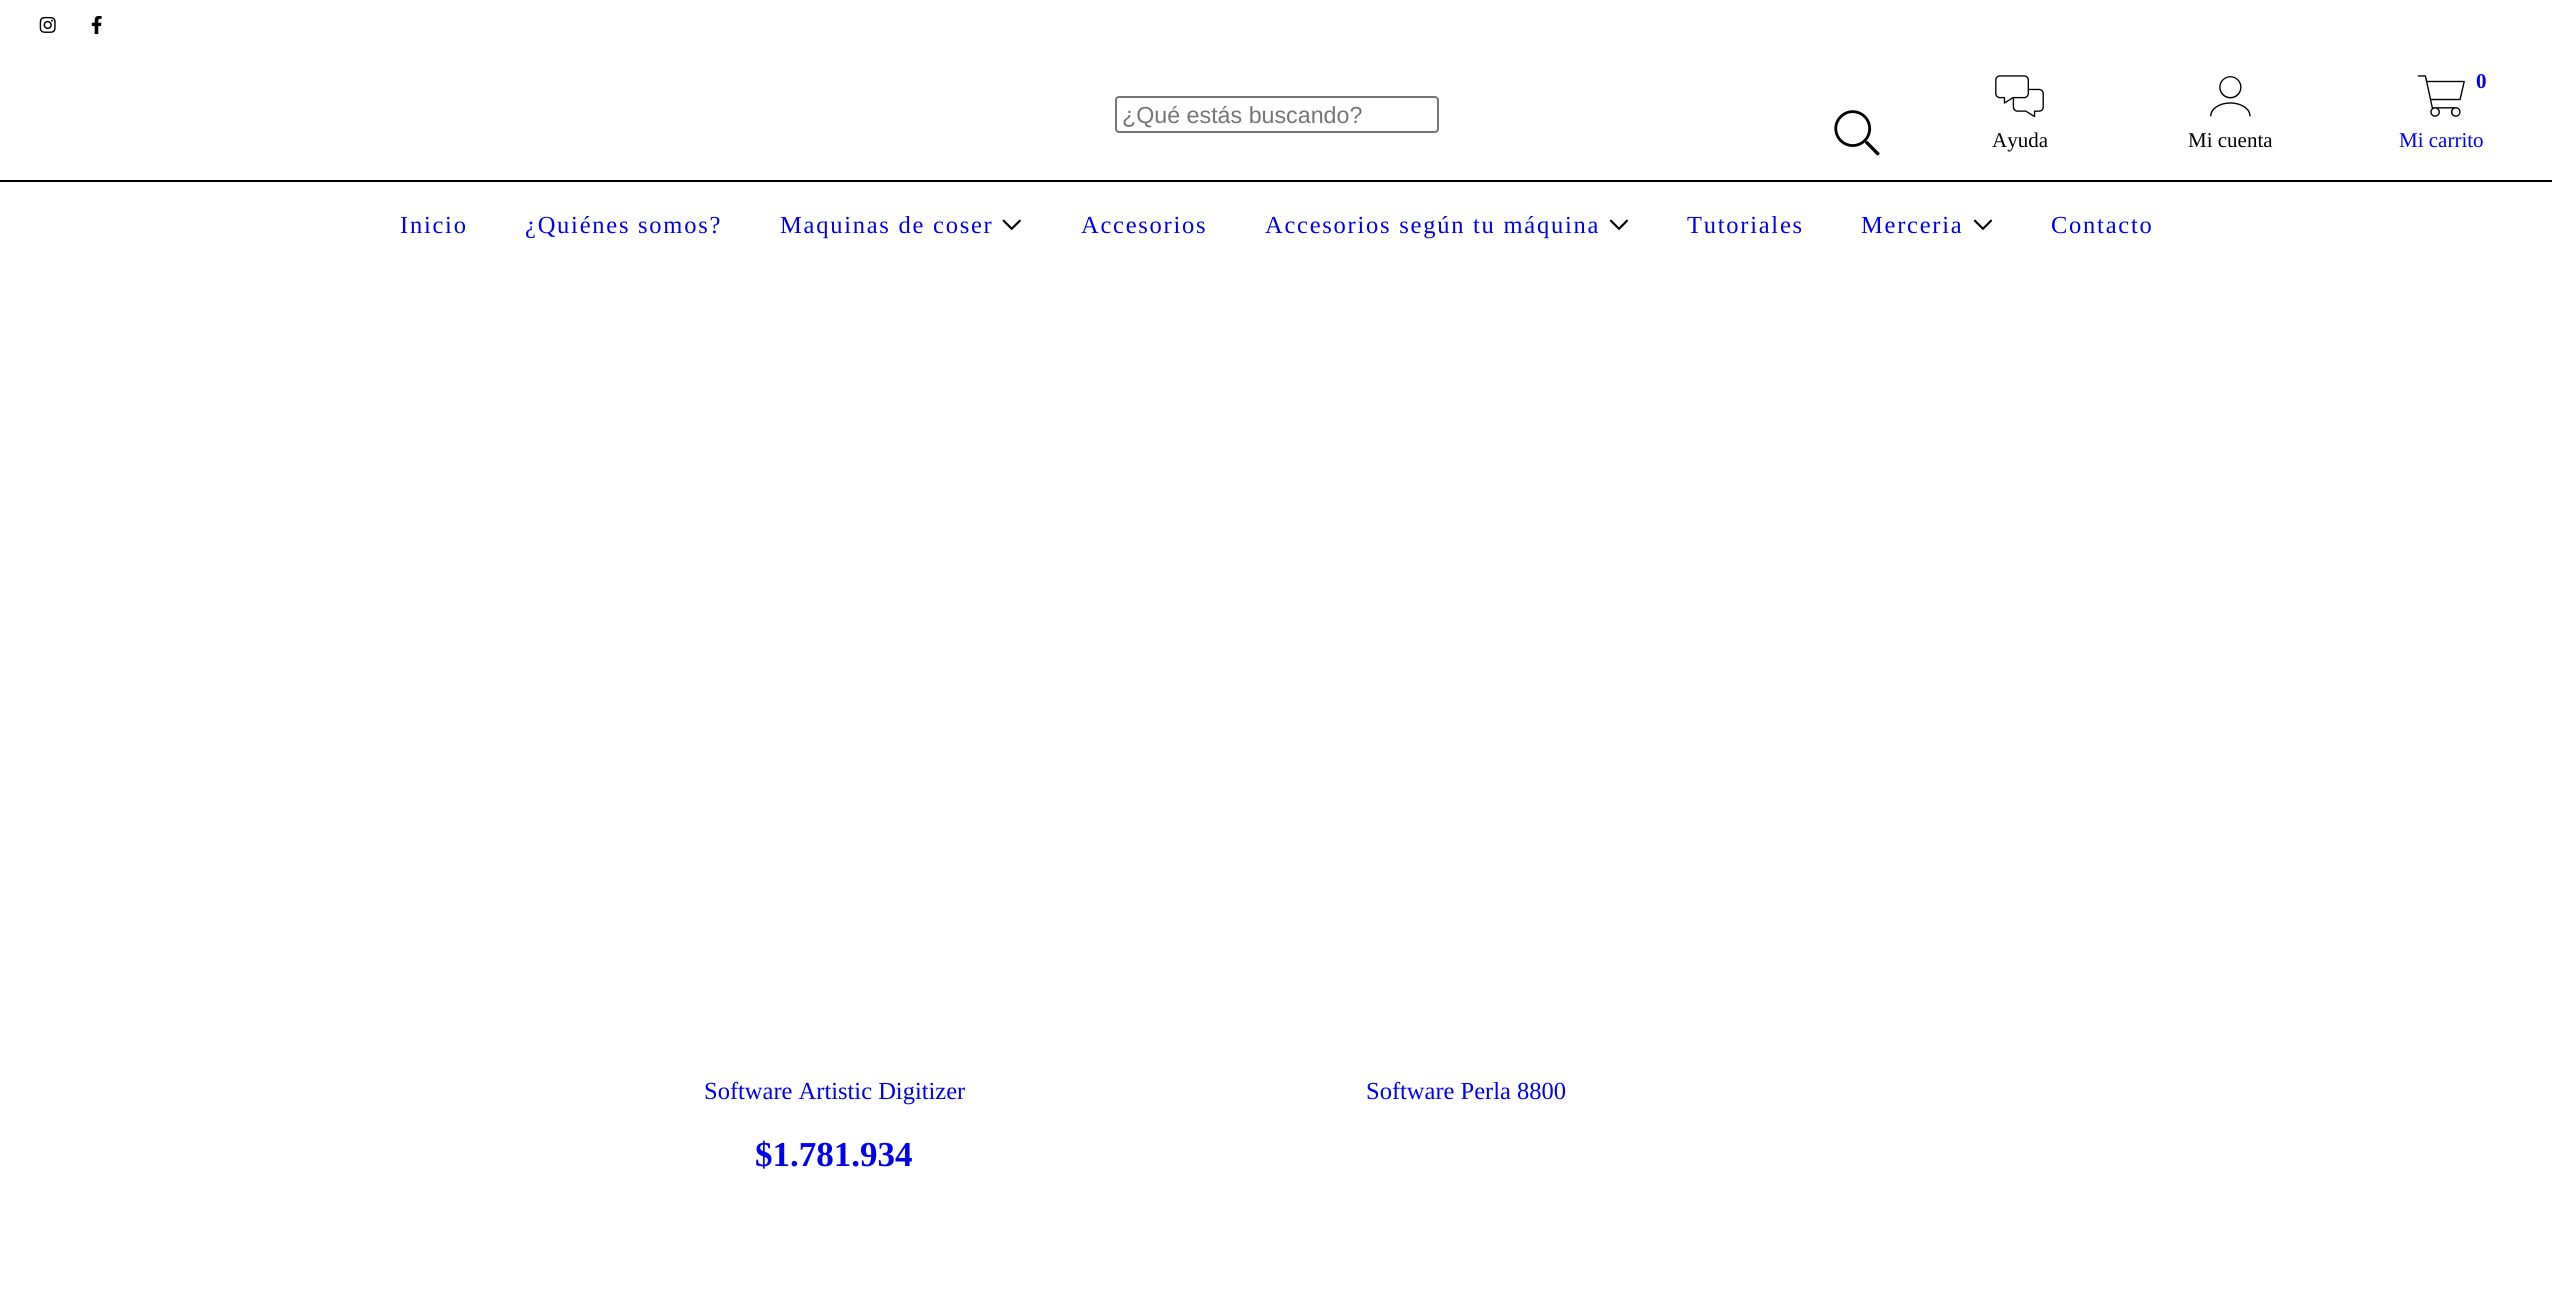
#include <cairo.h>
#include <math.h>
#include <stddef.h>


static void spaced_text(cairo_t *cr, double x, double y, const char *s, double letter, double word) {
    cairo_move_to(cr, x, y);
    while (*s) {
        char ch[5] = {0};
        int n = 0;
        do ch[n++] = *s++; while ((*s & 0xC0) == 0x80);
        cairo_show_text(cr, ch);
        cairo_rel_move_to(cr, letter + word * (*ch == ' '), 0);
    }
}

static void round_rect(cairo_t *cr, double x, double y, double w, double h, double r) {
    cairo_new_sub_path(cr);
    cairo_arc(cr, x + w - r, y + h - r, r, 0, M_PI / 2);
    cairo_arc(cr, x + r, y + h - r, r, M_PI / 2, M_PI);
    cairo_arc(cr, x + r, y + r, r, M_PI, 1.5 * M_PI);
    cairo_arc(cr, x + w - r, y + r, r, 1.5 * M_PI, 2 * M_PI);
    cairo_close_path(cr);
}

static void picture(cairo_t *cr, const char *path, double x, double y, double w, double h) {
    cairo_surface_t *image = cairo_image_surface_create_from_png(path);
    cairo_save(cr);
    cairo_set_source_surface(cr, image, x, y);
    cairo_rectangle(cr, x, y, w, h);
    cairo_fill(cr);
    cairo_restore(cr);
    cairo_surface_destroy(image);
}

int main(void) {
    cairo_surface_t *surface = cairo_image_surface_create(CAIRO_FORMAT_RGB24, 2552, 1314);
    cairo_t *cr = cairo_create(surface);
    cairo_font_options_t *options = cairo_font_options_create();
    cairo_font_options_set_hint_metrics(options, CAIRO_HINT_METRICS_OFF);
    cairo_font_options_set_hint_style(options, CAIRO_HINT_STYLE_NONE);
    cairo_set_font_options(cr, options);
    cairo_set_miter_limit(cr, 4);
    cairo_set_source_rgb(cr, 1, 1, 1);
    cairo_paint(cr);
    picture(cr, "img1.png", 39, 16, 17, 17);
    picture(cr, "img2.png", 91, 16, 11, 18);
    round_rect(cr, 1116, 97, 322, 35, 3);
    cairo_set_source_rgb(cr, 0.463, 0.463, 0.463);
    cairo_stroke(cr);
    cairo_select_font_face(cr, "Liberation Sans", CAIRO_FONT_SLANT_NORMAL, CAIRO_FONT_WEIGHT_NORMAL);
    cairo_set_font_size(cr, 23.25);
    cairo_set_source_rgb(cr, 0.459, 0.459, 0.459);
    cairo_move_to(cr, 1122, 123);
    cairo_show_text(cr, "¿Qué estás buscando?");
    picture(cr, "img3.png", 1834, 110, 46, 46);
    picture(cr, "img4.png", 1995, 75, 49, 42);
    cairo_select_font_face(cr, "Liberation Serif", CAIRO_FONT_SLANT_NORMAL, CAIRO_FONT_WEIGHT_NORMAL);
    cairo_set_font_size(cr, 21);
    cairo_set_source_rgb(cr, 0, 0, 0);
    cairo_move_to(cr, 1992, 147);
    cairo_show_text(cr, "Ayuda");
    picture(cr, "img5.png", 2210, 76, 41, 41);
    cairo_move_to(cr, 2188, 147);
    cairo_show_text(cr, "Mi cuenta");
    picture(cr, "img6.png", 2417, 75, 48, 42);
    cairo_select_font_face(cr, "Liberation Serif", CAIRO_FONT_SLANT_NORMAL, CAIRO_FONT_WEIGHT_BOLD);
    cairo_set_source_rgb(cr, 0, 0, 0.933);
    cairo_move_to(cr, 2476, 88);
    cairo_show_text(cr, "0");
    cairo_select_font_face(cr, "Liberation Serif", CAIRO_FONT_SLANT_NORMAL, CAIRO_FONT_WEIGHT_NORMAL);
    cairo_move_to(cr, 2399, 147);
    cairo_show_text(cr, "Mi carrito");
    cairo_set_source_rgb(cr, 0, 0, 0);
    cairo_rectangle(cr, 0, 180, 2552, 2);
    cairo_fill(cr);
    cairo_set_font_size(cr, 24.5);
    cairo_set_source_rgb(cr, 0, 0, 0.933);
    spaced_text(cr, 400, 233, "Inicio", 1.75, 0);
    spaced_text(cr, 525, 233, "¿Quiénes somos?", 1.75, 0);
    spaced_text(cr, 780, 233, "Maquinas de coser", 1.75, 0);
    picture(cr, "img7.png", 1002, 219, 19, 12);
    spaced_text(cr, 1081, 233, "Accesorios", 1.75, 0);
    spaced_text(cr, 1265, 233, "Accesorios según tu máquina", 1.75, 0);
    picture(cr, "img8.png", 1609, 219, 20, 12);
    spaced_text(cr, 1687, 233, "Tutoriales", 1.75, 0);
    spaced_text(cr, 1861, 233, "Merceria", 1.75, 0);
    picture(cr, "img8.png", 1973, 219, 20, 12);
    spaced_text(cr, 2051, 233, "Contacto", 1.75, 0);
    cairo_move_to(cr, 704, 1099);
    cairo_show_text(cr, "Software Artistic Digitizer");
    cairo_select_font_face(cr, "Liberation Serif", CAIRO_FONT_SLANT_NORMAL, CAIRO_FONT_WEIGHT_BOLD);
    cairo_set_font_size(cr, 35);
    cairo_move_to(cr, 755, 1166);
    cairo_show_text(cr, "$1.781.934");
    cairo_select_font_face(cr, "Liberation Serif", CAIRO_FONT_SLANT_NORMAL, CAIRO_FONT_WEIGHT_NORMAL);
    cairo_set_font_size(cr, 24.5);
    cairo_move_to(cr, 1366, 1099);
    cairo_show_text(cr, "Software Perla 8800");
    cairo_surface_write_to_png(surface, "page.png");
    cairo_font_options_destroy(options);
    cairo_destroy(cr);
    cairo_surface_destroy(surface);
    return 0;
}
